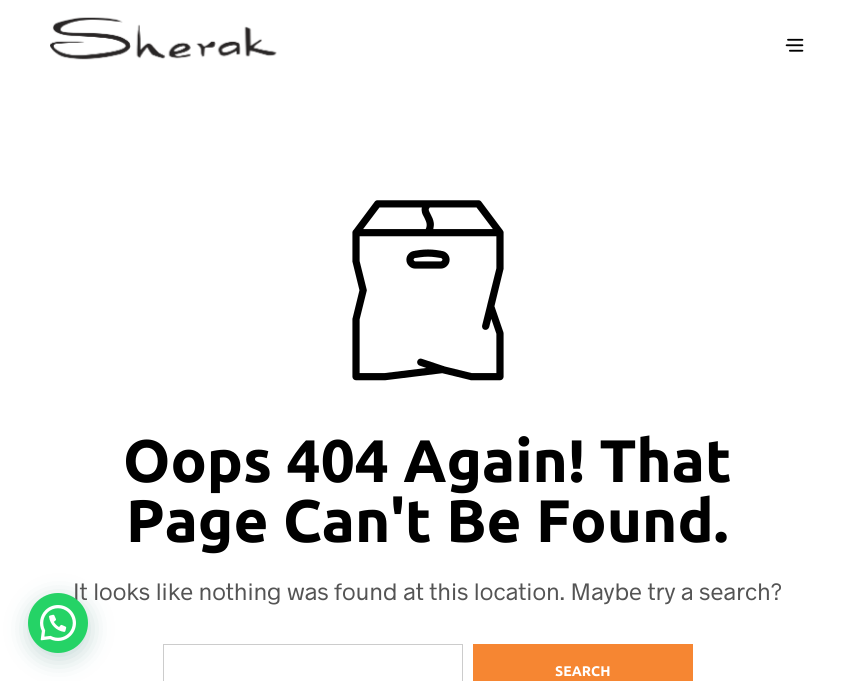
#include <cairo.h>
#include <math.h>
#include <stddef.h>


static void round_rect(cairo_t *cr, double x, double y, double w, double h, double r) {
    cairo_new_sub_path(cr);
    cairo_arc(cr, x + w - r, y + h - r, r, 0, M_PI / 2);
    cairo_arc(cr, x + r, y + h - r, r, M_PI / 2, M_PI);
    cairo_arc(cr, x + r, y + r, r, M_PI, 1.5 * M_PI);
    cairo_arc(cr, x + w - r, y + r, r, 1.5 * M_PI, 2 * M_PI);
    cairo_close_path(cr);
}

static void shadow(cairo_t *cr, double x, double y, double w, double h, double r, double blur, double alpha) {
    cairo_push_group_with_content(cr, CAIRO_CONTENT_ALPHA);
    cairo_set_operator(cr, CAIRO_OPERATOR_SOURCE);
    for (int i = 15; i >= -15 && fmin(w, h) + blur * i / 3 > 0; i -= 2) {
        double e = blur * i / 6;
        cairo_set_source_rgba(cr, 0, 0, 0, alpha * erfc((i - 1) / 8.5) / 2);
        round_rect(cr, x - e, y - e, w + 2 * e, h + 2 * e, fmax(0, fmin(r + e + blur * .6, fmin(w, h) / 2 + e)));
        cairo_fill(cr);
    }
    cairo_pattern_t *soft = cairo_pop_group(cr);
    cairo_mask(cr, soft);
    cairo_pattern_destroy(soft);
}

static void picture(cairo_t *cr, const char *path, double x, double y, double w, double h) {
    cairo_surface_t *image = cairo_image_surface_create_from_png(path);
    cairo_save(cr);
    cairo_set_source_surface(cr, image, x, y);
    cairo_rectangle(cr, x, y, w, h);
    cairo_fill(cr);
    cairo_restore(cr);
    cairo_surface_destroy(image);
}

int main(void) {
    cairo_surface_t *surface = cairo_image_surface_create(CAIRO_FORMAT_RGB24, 855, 681);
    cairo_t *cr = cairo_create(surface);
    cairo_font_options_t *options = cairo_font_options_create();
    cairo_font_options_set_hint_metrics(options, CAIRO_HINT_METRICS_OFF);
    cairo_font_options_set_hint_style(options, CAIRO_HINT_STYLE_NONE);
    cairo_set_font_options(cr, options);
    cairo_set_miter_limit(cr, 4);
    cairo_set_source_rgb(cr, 1, 1, 1);
    cairo_paint(cr);
    cairo_set_source_rgb(cr, 0.027, 0.369, 0.329);
    shadow(cr, 29, 599, 60, 60, 30, 12, 0.24);
    cairo_select_font_face(cr, "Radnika", CAIRO_FONT_SLANT_NORMAL, CAIRO_FONT_WEIGHT_NORMAL);
    cairo_set_font_size(cr, 24);
    cairo_set_source_rgb(cr, 0.329, 0.329, 0.329);
    cairo_move_to(cr, 73, 600);
    cairo_show_text(cr, "It looks like nothing was found at this location. Maybe try a search?");
    cairo_set_source_rgb(cr, 0.145, 0.827, 0.4);
    cairo_new_path(cr);
    cairo_arc(cr, 58, 623, 30, 0, 2 * M_PI);
    cairo_fill(cr);
    picture(cr, "img1.png", 40, 605, 36, 36);
    picture(cr, "img2.png", 50, 17, 227, 43);
    picture(cr, "img3.png", 785, 38, 19, 14);
    picture(cr, "img4.png", 352, 200, 152, 181);
    cairo_select_font_face(cr, "Ubuntu", CAIRO_FONT_SLANT_NORMAL, CAIRO_FONT_WEIGHT_BOLD);
    cairo_set_font_size(cr, 60);
    cairo_set_source_rgb(cr, 0, 0, 0);
    cairo_move_to(cr, 123, 482);
    cairo_show_text(cr, "Oops 404 Again! That");
    cairo_move_to(cr, 126, 542);
    cairo_show_text(cr, "Page Can't Be Found.");
    cairo_rectangle(cr, 163.5, 644.5, 299, 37);
    cairo_set_source_rgb(cr, 0.8, 0.8, 0.8);
    cairo_set_line_width(cr, 1);
    cairo_stroke(cr);
    cairo_set_source_rgb(cr, 0.961, 0.525, 0.196);
    cairo_rectangle(cr, 473, 644, 220, 37);
    cairo_fill(cr);
    cairo_set_font_size(cr, 14);
    cairo_set_source_rgb(cr, 1, 1, 1);
    cairo_move_to(cr, 555, 676);
    cairo_show_text(cr, "SEARCH");
    cairo_surface_write_to_png(surface, "page.png");
    cairo_font_options_destroy(options);
    cairo_destroy(cr);
    cairo_surface_destroy(surface);
    return 0;
}
